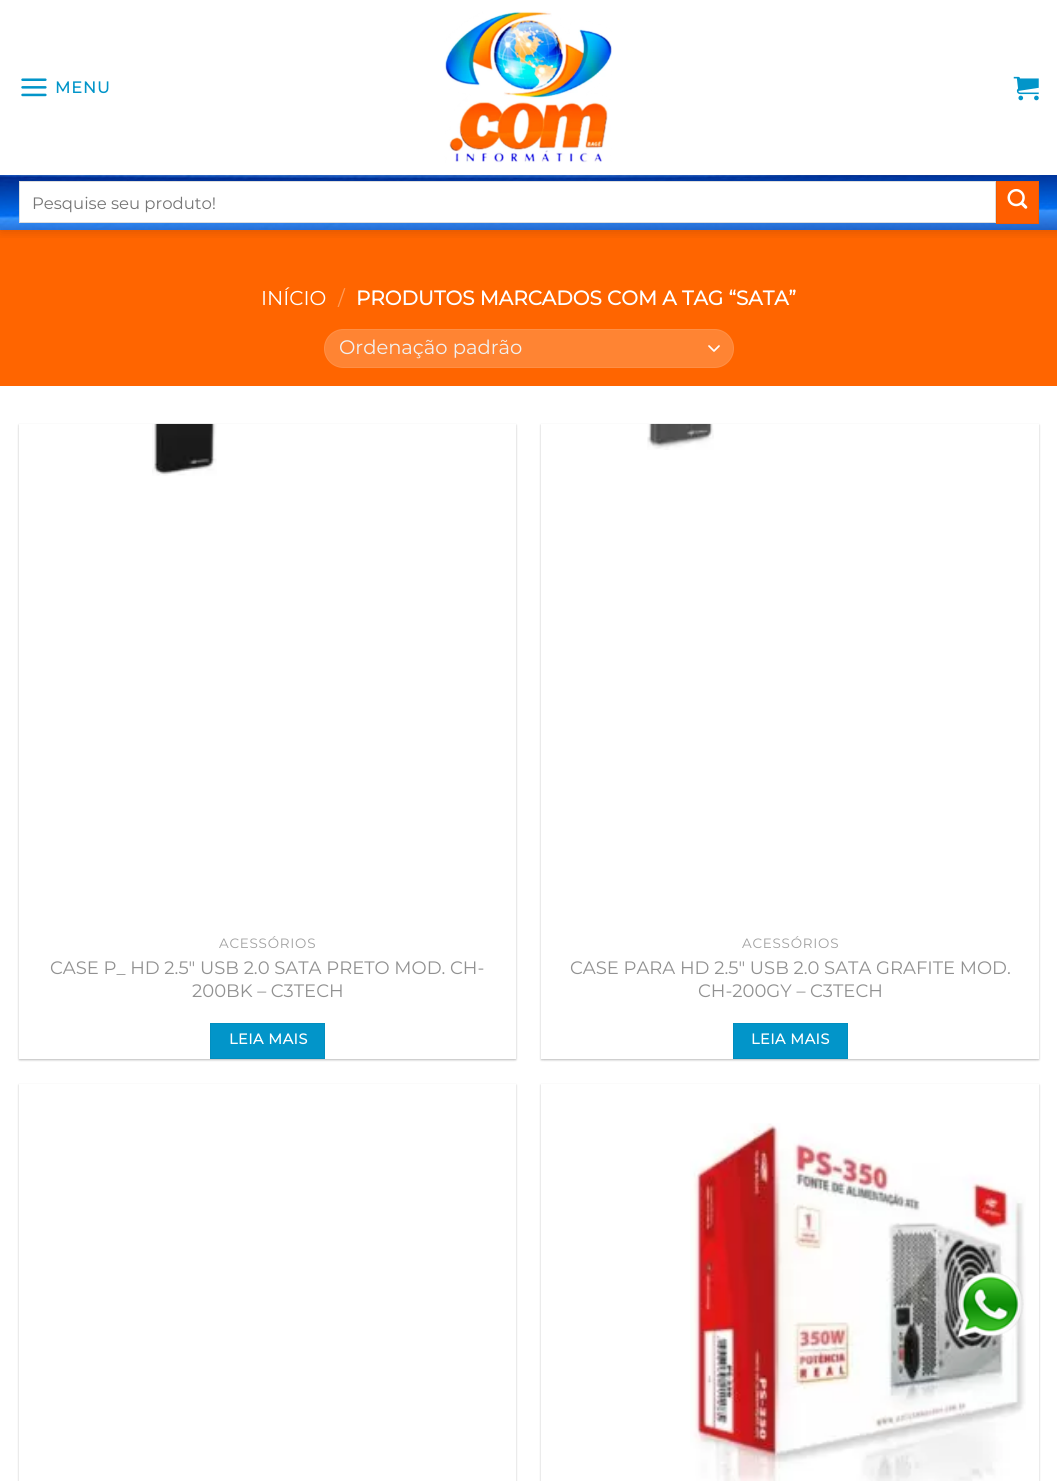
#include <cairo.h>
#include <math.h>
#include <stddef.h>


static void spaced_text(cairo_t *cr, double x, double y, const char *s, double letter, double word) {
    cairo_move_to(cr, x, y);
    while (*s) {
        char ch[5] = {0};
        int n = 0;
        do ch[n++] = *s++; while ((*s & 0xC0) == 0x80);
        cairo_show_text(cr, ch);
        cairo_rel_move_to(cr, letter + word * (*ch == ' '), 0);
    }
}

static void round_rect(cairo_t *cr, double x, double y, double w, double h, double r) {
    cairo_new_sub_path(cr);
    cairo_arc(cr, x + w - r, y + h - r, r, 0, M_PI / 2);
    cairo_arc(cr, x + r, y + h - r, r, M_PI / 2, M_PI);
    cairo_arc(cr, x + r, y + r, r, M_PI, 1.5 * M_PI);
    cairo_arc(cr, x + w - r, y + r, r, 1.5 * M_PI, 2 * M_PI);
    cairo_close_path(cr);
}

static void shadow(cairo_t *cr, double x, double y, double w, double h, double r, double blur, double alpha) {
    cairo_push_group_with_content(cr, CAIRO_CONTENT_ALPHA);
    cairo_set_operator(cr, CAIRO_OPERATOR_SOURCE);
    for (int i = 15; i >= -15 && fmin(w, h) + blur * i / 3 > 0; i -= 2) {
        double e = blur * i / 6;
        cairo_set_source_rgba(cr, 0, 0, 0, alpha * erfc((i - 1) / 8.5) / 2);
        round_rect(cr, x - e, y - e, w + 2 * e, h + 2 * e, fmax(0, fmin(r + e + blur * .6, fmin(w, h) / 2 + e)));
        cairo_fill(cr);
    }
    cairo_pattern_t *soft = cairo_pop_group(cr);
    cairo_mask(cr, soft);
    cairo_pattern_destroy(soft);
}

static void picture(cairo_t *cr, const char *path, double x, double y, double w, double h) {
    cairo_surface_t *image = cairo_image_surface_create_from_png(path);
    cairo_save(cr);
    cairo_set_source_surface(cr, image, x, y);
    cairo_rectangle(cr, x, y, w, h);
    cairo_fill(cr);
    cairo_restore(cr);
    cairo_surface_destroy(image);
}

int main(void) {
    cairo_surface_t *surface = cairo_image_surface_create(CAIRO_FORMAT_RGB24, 1057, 1481);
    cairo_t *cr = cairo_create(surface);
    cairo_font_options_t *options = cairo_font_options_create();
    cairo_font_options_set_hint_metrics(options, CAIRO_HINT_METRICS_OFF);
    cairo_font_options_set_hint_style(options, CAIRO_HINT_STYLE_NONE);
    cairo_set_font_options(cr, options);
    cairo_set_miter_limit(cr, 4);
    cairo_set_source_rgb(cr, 1, 1, 1);
    cairo_paint(cr);
    cairo_set_source_rgb(cr, 1, 0.396, 0);
    cairo_rectangle(cr, 0, 230, 1057, 156);
    cairo_fill(cr);
    cairo_save(cr);
    cairo_rectangle(cr, 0, 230, 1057, 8);
    cairo_clip(cr);
    cairo_set_source_rgb(cr, 0, 0, 0);
    shadow(cr, 1, 1, 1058, 230, 0, 6, 0.15);
    cairo_restore(cr);
    picture(cr, "img1.png", 21, 78, 26, 19);
    cairo_select_font_face(cr, "Montserrat", CAIRO_FONT_SLANT_NORMAL, CAIRO_FONT_WEIGHT_BOLD);
    cairo_set_font_size(cr, 16);
    cairo_set_source_rgb(cr, 0.008, 0.584, 0.788);
    spaced_text(cr, 55, 93, "MENU", 1, 0);
    picture(cr, "img2.png", 444, 11, 168, 152);
    picture(cr, "img3.png", 1013, 76, 26, 25);
    picture(cr, "img4.png", 0, 175, 1057, 55);
    cairo_set_source_rgba(cr, 0.467, 0.467, 0.467, 0.1);
    cairo_rectangle(cr, 19, 175, 1020, 1);
    cairo_fill(cr);
    cairo_set_source_rgb(cr, 1, 1, 1);
    cairo_rectangle(cr, 19.5, 181.5, 976, 41);
    cairo_fill_preserve(cr);
    cairo_set_source_rgb(cr, 0.867, 0.867, 0.867);
    cairo_set_line_width(cr, 1);
    cairo_stroke(cr);
    cairo_select_font_face(cr, "Montserrat Thin", CAIRO_FONT_SLANT_NORMAL, CAIRO_FONT_WEIGHT_NORMAL);
    cairo_set_font_size(cr, 16.5);
    cairo_set_source_rgb(cr, 0.459, 0.459, 0.459);
    cairo_move_to(cr, 32, 209);
    cairo_show_text(cr, "Pesquise seu produto!");
    cairo_set_source_rgb(cr, 1, 0.369, 0);
    cairo_rectangle(cr, 996.5, 181.5, 42, 42);
    cairo_fill_preserve(cr);
    cairo_set_source_rgb(cr, 0.949, 0.349, 0);
    cairo_stroke(cr);
    picture(cr, "img5.png", 1007, 188, 21, 21);
    cairo_set_font_size(cr, 20);
    cairo_set_source_rgb(cr, 1, 1, 1);
    cairo_move_to(cr, 261, 305);
    cairo_show_text(cr, "INÍCIO");
    cairo_set_source_rgb(cr, 1, 0.608, 0.349);
    cairo_move_to(cr, 338, 305);
    cairo_show_text(cr, "/");
    cairo_select_font_face(cr, "Montserrat", CAIRO_FONT_SLANT_NORMAL, CAIRO_FONT_WEIGHT_BOLD);
    cairo_set_source_rgb(cr, 1, 1, 1);
    cairo_move_to(cr, 356, 305);
    cairo_show_text(cr, "PRODUTOS MARCADOS COM A TAG “SATA”");
    cairo_set_source_rgb(cr, 1, 0.518, 0.2);
    round_rect(cr, 324, 329, 410, 39, 19.5);
    cairo_fill(cr);
    cairo_new_path(cr);
    cairo_move_to(cr, 709, 346);
    cairo_line_to(cr, 714, 351);
    cairo_line_to(cr, 719, 346);
    cairo_set_source_rgb(cr, 1, 1, 1);
    cairo_set_line_width(cr, 1.7);
    cairo_set_line_cap(cr, CAIRO_LINE_CAP_ROUND);
    cairo_set_line_join(cr, CAIRO_LINE_JOIN_ROUND);
    cairo_stroke(cr);
    round_rect(cr, 324.5, 329.5, 409, 38, 19);
    cairo_set_source_rgba(cr, 1, 1, 1, 0.09);
    cairo_set_line_width(cr, 1);
    cairo_set_line_cap(cr, CAIRO_LINE_CAP_BUTT);
    cairo_set_line_join(cr, CAIRO_LINE_JOIN_MITER);
    cairo_stroke(cr);
    cairo_select_font_face(cr, "Montserrat Thin", CAIRO_FONT_SLANT_NORMAL, CAIRO_FONT_WEIGHT_NORMAL);
    cairo_set_font_size(cr, 19.5);
    cairo_set_source_rgb(cr, 0.945, 0.945, 0.945);
    cairo_move_to(cr, 339, 354);
    cairo_show_text(cr, "Ordenação padrão");
    cairo_set_source_rgb(cr, 0, 0, 0);
    shadow(cr, 19, 425, 497, 635, 0, 1, 0.24);
    shadow(cr, 21, 428, 493, 630, 0, 2, 0.12);
    cairo_set_source_rgb(cr, 1, 1, 1);
    cairo_rectangle(cr, 19, 424, 497, 635);
    cairo_fill(cr);
    picture(cr, "img6.png", 152, 423, 65, 53);
    cairo_set_font_size(cr, 13.5);
    cairo_set_source_rgb(cr, 0.627, 0.627, 0.627);
    spaced_text(cr, 219, 948, "ACESSÓRIOS", 0.75, 0);
    cairo_set_font_size(cr, 18);
    cairo_set_source_rgb(cr, 0.569, 0.569, 0.569);
    cairo_move_to(cr, 50, 974);
    cairo_show_text(cr, "CASE P_ HD 2.5″ USB 2.0 SATA PRETO MOD. CH-");
    cairo_move_to(cr, 192, 997);
    cairo_show_text(cr, "200BK – C3TECH");
    cairo_set_source_rgb(cr, 0.008, 0.584, 0.788);
    cairo_rectangle(cr, 210.5, 1023.5, 114, 35);
    cairo_fill_preserve(cr);
    cairo_set_source_rgb(cr, 0.008, 0.557, 0.749);
    cairo_stroke(cr);
    cairo_select_font_face(cr, "Montserrat", CAIRO_FONT_SLANT_NORMAL, CAIRO_FONT_WEIGHT_BOLD);
    cairo_set_font_size(cr, 14.5);
    cairo_set_source_rgb(cr, 1, 1, 1);
    spaced_text(cr, 229, 1044, "LEIA MAIS", 0.5, 0);
    cairo_set_source_rgb(cr, 0, 0, 0);
    shadow(cr, 541, 425, 498, 635, 0, 1, 0.24);
    shadow(cr, 544, 428, 492, 630, 0, 2, 0.12);
    cairo_set_source_rgb(cr, 1, 1, 1);
    cairo_rectangle(cr, 541, 424, 498, 635);
    cairo_fill(cr);
    picture(cr, "img7.png", 647, 423, 67, 27);
    cairo_select_font_face(cr, "Montserrat Thin", CAIRO_FONT_SLANT_NORMAL, CAIRO_FONT_WEIGHT_NORMAL);
    cairo_set_font_size(cr, 13.5);
    cairo_set_source_rgb(cr, 0.627, 0.627, 0.627);
    spaced_text(cr, 742, 948, "ACESSÓRIOS", 0.75, 0);
    cairo_set_font_size(cr, 18);
    cairo_set_source_rgb(cr, 0.569, 0.569, 0.569);
    cairo_move_to(cr, 570, 974);
    cairo_show_text(cr, "CASE PARA HD 2.5″ USB 2.0 SATA GRAFITE MOD.");
    cairo_move_to(cr, 698, 997);
    cairo_show_text(cr, "CH-200GY – C3TECH");
    cairo_set_source_rgb(cr, 0.008, 0.584, 0.788);
    cairo_rectangle(cr, 733.5, 1023.5, 114, 35);
    cairo_fill_preserve(cr);
    cairo_set_source_rgb(cr, 0.008, 0.557, 0.749);
    cairo_stroke(cr);
    cairo_select_font_face(cr, "Montserrat", CAIRO_FONT_SLANT_NORMAL, CAIRO_FONT_WEIGHT_BOLD);
    cairo_set_font_size(cr, 14.5);
    cairo_set_source_rgb(cr, 1, 1, 1);
    spaced_text(cr, 751, 1044, "LEIA MAIS", 0.5, 0);
    cairo_save(cr);
    cairo_set_fill_rule(cr, CAIRO_FILL_RULE_EVEN_ODD);
    cairo_new_path(cr);
    cairo_move_to(cr, 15, 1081);
    cairo_line_to(cr, 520, 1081);
    cairo_line_to(cr, 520, 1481);
    cairo_line_to(cr, 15, 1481);
    cairo_close_path(cr);
    cairo_move_to(cr, 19, 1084);
    cairo_line_to(cr, 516, 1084);
    cairo_line_to(cr, 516, 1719);
    cairo_line_to(cr, 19, 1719);
    cairo_close_path(cr);
    cairo_clip(cr);
    cairo_set_source_rgb(cr, 0, 0, 0);
    shadow(cr, 19, 1085, 497, 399, 0, 1, 0.24);
    cairo_restore(cr);
    cairo_set_source_rgb(cr, 0, 0, 0);
    shadow(cr, 541, 1085, 498, 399, 0, 1, 0.24);
    cairo_set_source_rgb(cr, 1, 1, 1);
    cairo_rectangle(cr, 541, 1084, 498, 397);
    cairo_fill(cr);
    picture(cr, "img8.png", 690, 1123, 336, 358);
    picture(cr, "img9.png", 956, 1271, 68, 67);
    cairo_surface_write_to_png(surface, "page.png");
    cairo_font_options_destroy(options);
    cairo_destroy(cr);
    cairo_surface_destroy(surface);
    return 0;
}
